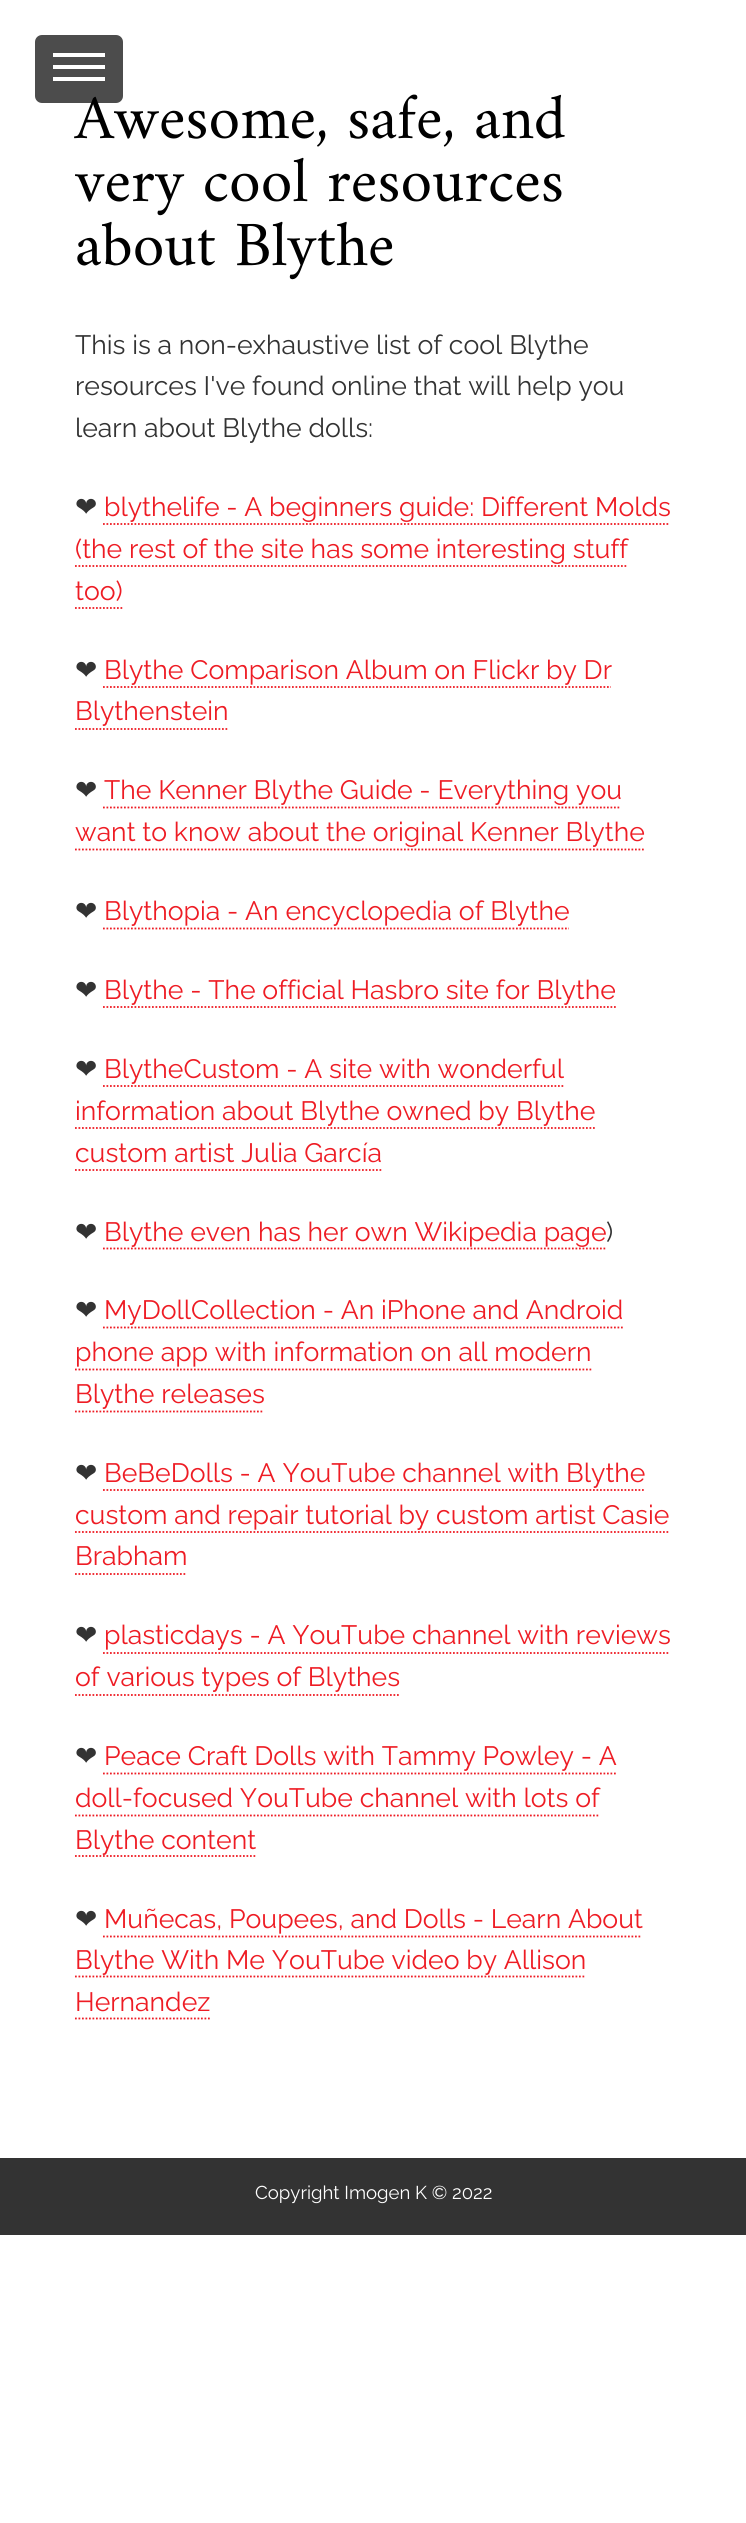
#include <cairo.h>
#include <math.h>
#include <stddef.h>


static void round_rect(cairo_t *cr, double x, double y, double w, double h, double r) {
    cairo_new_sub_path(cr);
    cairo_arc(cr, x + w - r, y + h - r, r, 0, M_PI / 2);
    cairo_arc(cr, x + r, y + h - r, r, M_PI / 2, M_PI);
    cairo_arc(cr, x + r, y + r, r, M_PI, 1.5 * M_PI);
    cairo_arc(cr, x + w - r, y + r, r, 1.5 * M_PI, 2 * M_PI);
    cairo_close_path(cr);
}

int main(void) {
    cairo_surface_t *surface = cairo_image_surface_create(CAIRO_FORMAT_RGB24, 746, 2523);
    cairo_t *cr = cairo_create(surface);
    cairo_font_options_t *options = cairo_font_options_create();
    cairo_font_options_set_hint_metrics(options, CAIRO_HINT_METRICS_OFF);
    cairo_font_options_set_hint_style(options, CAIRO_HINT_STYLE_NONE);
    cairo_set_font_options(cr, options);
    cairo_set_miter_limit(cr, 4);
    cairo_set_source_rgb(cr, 1, 1, 1);
    cairo_paint(cr);
    cairo_select_font_face(cr, "Amiri", CAIRO_FONT_SLANT_NORMAL, CAIRO_FONT_WEIGHT_NORMAL);
    cairo_set_font_size(cr, 63.75);
    cairo_set_source_rgb(cr, 0, 0, 0);
    cairo_move_to(cr, 75, 138);
    cairo_show_text(cr, "Awesome, safe, and");
    cairo_set_source_rgba(cr, 0, 0, 0, 0.7);
    round_rect(cr, 35, 35, 88, 68, 7);
    cairo_fill(cr);
    cairo_set_source_rgb(cr, 1, 1, 1);
    cairo_rectangle(cr, 53, 65, 52, 4);
    cairo_fill(cr);
    cairo_rectangle(cr, 53, 53, 52, 4);
    cairo_fill(cr);
    cairo_rectangle(cr, 53, 77, 52, 4);
    cairo_fill(cr);
    cairo_set_source_rgb(cr, 0, 0, 0);
    cairo_move_to(cr, 75, 201);
    cairo_show_text(cr, "very cool resources");
    cairo_move_to(cr, 75, 265);
    cairo_show_text(cr, "about Blythe");
    cairo_select_font_face(cr, "Raleway Thin", CAIRO_FONT_SLANT_NORMAL, CAIRO_FONT_WEIGHT_NORMAL);
    cairo_set_font_size(cr, 26.6);
    cairo_set_source_rgb(cr, 0.2, 0.2, 0.2);
    cairo_move_to(cr, 75, 354);
    cairo_show_text(cr, "This is a non-exhaustive list of cool Blythe");
    cairo_move_to(cr, 75, 395);
    cairo_show_text(cr, "resources I've found online that will help you");
    cairo_move_to(cr, 75, 437);
    cairo_show_text(cr, "learn about Blythe dolls:");
    cairo_select_font_face(cr, "DejaVu Sans", CAIRO_FONT_SLANT_NORMAL, CAIRO_FONT_WEIGHT_NORMAL);
    cairo_move_to(cr, 75, 516);
    cairo_show_text(cr, "❤");
    cairo_select_font_face(cr, "Raleway Thin", CAIRO_FONT_SLANT_NORMAL, CAIRO_FONT_WEIGHT_NORMAL);
    cairo_set_source_rgb(cr, 0.933, 0.11, 0.141);
    cairo_move_to(cr, 104, 516);
    cairo_show_text(cr, "blythelife - A beginners guide: Different Molds");
    cairo_new_path(cr);
    cairo_move_to(cr, 103, 524);
    cairo_line_to(cr, 670, 524);
    cairo_set_line_width(cr, 1.8);
    cairo_set_dash(cr, (double[]){1.75, 1.75}, 2, 0);
    cairo_stroke(cr);
    cairo_move_to(cr, 75, 558);
    cairo_show_text(cr, "(the rest of the site has some interesting stuff");
    cairo_new_path(cr);
    cairo_move_to(cr, 75, 566);
    cairo_line_to(cr, 626.5, 566);
    cairo_stroke(cr);
    cairo_move_to(cr, 75, 600);
    cairo_show_text(cr, "too)");
    cairo_new_path(cr);
    cairo_move_to(cr, 75, 608);
    cairo_line_to(cr, 122.5, 608);
    cairo_stroke(cr);
    cairo_select_font_face(cr, "DejaVu Sans", CAIRO_FONT_SLANT_NORMAL, CAIRO_FONT_WEIGHT_NORMAL);
    cairo_set_source_rgb(cr, 0.2, 0.2, 0.2);
    cairo_move_to(cr, 75, 679);
    cairo_show_text(cr, "❤");
    cairo_select_font_face(cr, "Raleway Thin", CAIRO_FONT_SLANT_NORMAL, CAIRO_FONT_WEIGHT_NORMAL);
    cairo_set_source_rgb(cr, 0.933, 0.11, 0.141);
    cairo_move_to(cr, 104, 679);
    cairo_show_text(cr, "Blythe Comparison Album on Flickr by Dr");
    cairo_new_path(cr);
    cairo_move_to(cr, 103, 687);
    cairo_line_to(cr, 611, 687);
    cairo_stroke(cr);
    cairo_move_to(cr, 75, 720);
    cairo_show_text(cr, "Blythenstein");
    cairo_new_path(cr);
    cairo_move_to(cr, 75, 729);
    cairo_line_to(cr, 227.5, 729);
    cairo_stroke(cr);
    cairo_select_font_face(cr, "DejaVu Sans", CAIRO_FONT_SLANT_NORMAL, CAIRO_FONT_WEIGHT_NORMAL);
    cairo_set_source_rgb(cr, 0.2, 0.2, 0.2);
    cairo_move_to(cr, 75, 799);
    cairo_show_text(cr, "❤");
    cairo_select_font_face(cr, "Raleway Thin", CAIRO_FONT_SLANT_NORMAL, CAIRO_FONT_WEIGHT_NORMAL);
    cairo_set_source_rgb(cr, 0.933, 0.11, 0.141);
    cairo_move_to(cr, 104, 799);
    cairo_show_text(cr, "The Kenner Blythe Guide - Everything you");
    cairo_new_path(cr);
    cairo_move_to(cr, 103, 807.5);
    cairo_line_to(cr, 621, 807.5);
    cairo_stroke(cr);
    cairo_move_to(cr, 75, 841);
    cairo_show_text(cr, "want to know about the original Kenner Blythe");
    cairo_new_path(cr);
    cairo_move_to(cr, 75, 849.5);
    cairo_line_to(cr, 644, 849.5);
    cairo_stroke(cr);
    cairo_select_font_face(cr, "DejaVu Sans", CAIRO_FONT_SLANT_NORMAL, CAIRO_FONT_WEIGHT_NORMAL);
    cairo_set_source_rgb(cr, 0.2, 0.2, 0.2);
    cairo_move_to(cr, 75, 920);
    cairo_show_text(cr, "❤");
    cairo_select_font_face(cr, "Raleway Thin", CAIRO_FONT_SLANT_NORMAL, CAIRO_FONT_WEIGHT_NORMAL);
    cairo_set_source_rgb(cr, 0.933, 0.11, 0.141);
    cairo_move_to(cr, 104, 920);
    cairo_show_text(cr, "Blythopia - An encyclopedia of Blythe");
    cairo_new_path(cr);
    cairo_move_to(cr, 103, 928.5);
    cairo_line_to(cr, 569, 928.5);
    cairo_stroke(cr);
    cairo_select_font_face(cr, "DejaVu Sans", CAIRO_FONT_SLANT_NORMAL, CAIRO_FONT_WEIGHT_NORMAL);
    cairo_set_source_rgb(cr, 0.2, 0.2, 0.2);
    cairo_move_to(cr, 75, 999);
    cairo_show_text(cr, "❤");
    cairo_select_font_face(cr, "Raleway Thin", CAIRO_FONT_SLANT_NORMAL, CAIRO_FONT_WEIGHT_NORMAL);
    cairo_set_source_rgb(cr, 0.933, 0.11, 0.141);
    cairo_move_to(cr, 104, 999);
    cairo_show_text(cr, "Blythe - The official Hasbro site for Blythe");
    cairo_new_path(cr);
    cairo_move_to(cr, 103, 1007);
    cairo_line_to(cr, 616, 1007);
    cairo_stroke(cr);
    cairo_select_font_face(cr, "DejaVu Sans", CAIRO_FONT_SLANT_NORMAL, CAIRO_FONT_WEIGHT_NORMAL);
    cairo_set_source_rgb(cr, 0.2, 0.2, 0.2);
    cairo_move_to(cr, 75, 1078);
    cairo_show_text(cr, "❤");
    cairo_select_font_face(cr, "Raleway Thin", CAIRO_FONT_SLANT_NORMAL, CAIRO_FONT_WEIGHT_NORMAL);
    cairo_set_source_rgb(cr, 0.933, 0.11, 0.141);
    cairo_move_to(cr, 104, 1078);
    cairo_show_text(cr, "BlytheCustom - A site with wonderful");
    cairo_new_path(cr);
    cairo_move_to(cr, 103, 1086);
    cairo_line_to(cr, 563.5, 1086);
    cairo_stroke(cr);
    cairo_move_to(cr, 75, 1120);
    cairo_show_text(cr, "information about Blythe owned by Blythe");
    cairo_new_path(cr);
    cairo_move_to(cr, 75, 1128);
    cairo_line_to(cr, 595, 1128);
    cairo_stroke(cr);
    cairo_move_to(cr, 75, 1162);
    cairo_show_text(cr, "custom artist Julia García");
    cairo_new_path(cr);
    cairo_move_to(cr, 75, 1170);
    cairo_line_to(cr, 381.5, 1170);
    cairo_stroke(cr);
    cairo_select_font_face(cr, "DejaVu Sans", CAIRO_FONT_SLANT_NORMAL, CAIRO_FONT_WEIGHT_NORMAL);
    cairo_set_source_rgb(cr, 0.2, 0.2, 0.2);
    cairo_move_to(cr, 75, 1241);
    cairo_show_text(cr, "❤");
    cairo_select_font_face(cr, "Raleway Thin", CAIRO_FONT_SLANT_NORMAL, CAIRO_FONT_WEIGHT_NORMAL);
    cairo_set_source_rgb(cr, 0.933, 0.11, 0.141);
    cairo_move_to(cr, 104, 1241);
    cairo_show_text(cr, "Blythe even has her own Wikipedia page");
    cairo_new_path(cr);
    cairo_move_to(cr, 103, 1248.5);
    cairo_line_to(cr, 605.5, 1248.5);
    cairo_stroke(cr);
    cairo_set_source_rgb(cr, 0.2, 0.2, 0.2);
    cairo_move_to(cr, 606, 1241);
    cairo_show_text(cr, ")");
    cairo_select_font_face(cr, "DejaVu Sans", CAIRO_FONT_SLANT_NORMAL, CAIRO_FONT_WEIGHT_NORMAL);
    cairo_move_to(cr, 75, 1319);
    cairo_show_text(cr, "❤");
    cairo_select_font_face(cr, "Raleway Thin", CAIRO_FONT_SLANT_NORMAL, CAIRO_FONT_WEIGHT_NORMAL);
    cairo_set_source_rgb(cr, 0.933, 0.11, 0.141);
    cairo_move_to(cr, 104, 1319);
    cairo_show_text(cr, "MyDollCollection - An iPhone and Android");
    cairo_new_path(cr);
    cairo_move_to(cr, 103, 1327.5);
    cairo_line_to(cr, 623, 1327.5);
    cairo_stroke(cr);
    cairo_move_to(cr, 75, 1361);
    cairo_show_text(cr, "phone app with information on all modern");
    cairo_new_path(cr);
    cairo_move_to(cr, 75, 1369.5);
    cairo_line_to(cr, 591.5, 1369.5);
    cairo_stroke(cr);
    cairo_move_to(cr, 75, 1403);
    cairo_show_text(cr, "Blythe releases");
    cairo_new_path(cr);
    cairo_move_to(cr, 75, 1411.5);
    cairo_line_to(cr, 264, 1411.5);
    cairo_stroke(cr);
    cairo_select_font_face(cr, "DejaVu Sans", CAIRO_FONT_SLANT_NORMAL, CAIRO_FONT_WEIGHT_NORMAL);
    cairo_set_source_rgb(cr, 0.2, 0.2, 0.2);
    cairo_move_to(cr, 75, 1482);
    cairo_show_text(cr, "❤");
    cairo_select_font_face(cr, "Raleway Thin", CAIRO_FONT_SLANT_NORMAL, CAIRO_FONT_WEIGHT_NORMAL);
    cairo_set_source_rgb(cr, 0.933, 0.11, 0.141);
    cairo_move_to(cr, 104, 1482);
    cairo_show_text(cr, "BeBeDolls - A YouTube channel with Blythe");
    cairo_new_path(cr);
    cairo_move_to(cr, 103, 1490);
    cairo_line_to(cr, 644, 1490);
    cairo_stroke(cr);
    cairo_move_to(cr, 75, 1524);
    cairo_show_text(cr, "custom and repair tutorial by custom artist Casie");
    cairo_new_path(cr);
    cairo_move_to(cr, 75, 1532);
    cairo_line_to(cr, 668.5, 1532);
    cairo_stroke(cr);
    cairo_move_to(cr, 75, 1565);
    cairo_show_text(cr, "Brabham");
    cairo_new_path(cr);
    cairo_move_to(cr, 75, 1574);
    cairo_line_to(cr, 187, 1574);
    cairo_stroke(cr);
    cairo_select_font_face(cr, "DejaVu Sans", CAIRO_FONT_SLANT_NORMAL, CAIRO_FONT_WEIGHT_NORMAL);
    cairo_set_source_rgb(cr, 0.2, 0.2, 0.2);
    cairo_move_to(cr, 75, 1644);
    cairo_show_text(cr, "❤");
    cairo_select_font_face(cr, "Raleway Thin", CAIRO_FONT_SLANT_NORMAL, CAIRO_FONT_WEIGHT_NORMAL);
    cairo_set_source_rgb(cr, 0.933, 0.11, 0.141);
    cairo_move_to(cr, 104, 1644);
    cairo_show_text(cr, "plasticdays - A YouTube channel with reviews");
    cairo_new_path(cr);
    cairo_move_to(cr, 103, 1653);
    cairo_line_to(cr, 670, 1653);
    cairo_stroke(cr);
    cairo_move_to(cr, 75, 1686);
    cairo_show_text(cr, "of various types of Blythes");
    cairo_new_path(cr);
    cairo_move_to(cr, 75, 1695);
    cairo_line_to(cr, 399, 1695);
    cairo_stroke(cr);
    cairo_select_font_face(cr, "DejaVu Sans", CAIRO_FONT_SLANT_NORMAL, CAIRO_FONT_WEIGHT_NORMAL);
    cairo_set_source_rgb(cr, 0.2, 0.2, 0.2);
    cairo_move_to(cr, 75, 1765);
    cairo_show_text(cr, "❤");
    cairo_select_font_face(cr, "Raleway Thin", CAIRO_FONT_SLANT_NORMAL, CAIRO_FONT_WEIGHT_NORMAL);
    cairo_set_source_rgb(cr, 0.933, 0.11, 0.141);
    cairo_move_to(cr, 104, 1765);
    cairo_show_text(cr, "Peace Craft Dolls with Tammy Powley - A");
    cairo_new_path(cr);
    cairo_move_to(cr, 103, 1773.5);
    cairo_line_to(cr, 616, 1773.5);
    cairo_stroke(cr);
    cairo_move_to(cr, 75, 1807);
    cairo_show_text(cr, "doll-focused YouTube channel with lots of");
    cairo_new_path(cr);
    cairo_move_to(cr, 75, 1815.5);
    cairo_line_to(cr, 598.5, 1815.5);
    cairo_stroke(cr);
    cairo_move_to(cr, 75, 1849);
    cairo_show_text(cr, "Blythe content");
    cairo_new_path(cr);
    cairo_move_to(cr, 75, 1856);
    cairo_line_to(cr, 255.5, 1856);
    cairo_stroke(cr);
    cairo_select_font_face(cr, "DejaVu Sans", CAIRO_FONT_SLANT_NORMAL, CAIRO_FONT_WEIGHT_NORMAL);
    cairo_set_source_rgb(cr, 0.2, 0.2, 0.2);
    cairo_move_to(cr, 75, 1928);
    cairo_show_text(cr, "❤");
    cairo_select_font_face(cr, "Raleway Thin", CAIRO_FONT_SLANT_NORMAL, CAIRO_FONT_WEIGHT_NORMAL);
    cairo_set_source_rgb(cr, 0.933, 0.11, 0.141);
    cairo_move_to(cr, 104, 1928);
    cairo_show_text(cr, "Muñecas, Poupees, and Dolls - Learn About");
    cairo_new_path(cr);
    cairo_move_to(cr, 103, 1936.5);
    cairo_line_to(cr, 642, 1936.5);
    cairo_stroke(cr);
    cairo_move_to(cr, 75, 1969);
    cairo_show_text(cr, "Blythe With Me YouTube video by Allison");
    cairo_new_path(cr);
    cairo_move_to(cr, 75, 1976.5);
    cairo_line_to(cr, 586, 1976.5);
    cairo_stroke(cr);
    cairo_move_to(cr, 75, 2011);
    cairo_show_text(cr, "Hernandez");
    cairo_new_path(cr);
    cairo_move_to(cr, 75, 2018.5);
    cairo_line_to(cr, 210, 2018.5);
    cairo_stroke(cr);
    cairo_set_source_rgb(cr, 0.2, 0.2, 0.2);
    cairo_rectangle(cr, 0, 2158, 746, 77);
    cairo_fill(cr);
    cairo_set_font_size(cr, 18.6);
    cairo_set_source_rgb(cr, 1, 1, 1);
    cairo_move_to(cr, 255, 2199);
    cairo_show_text(cr, "Copyright Imogen K © 2022");
    cairo_surface_write_to_png(surface, "page.png");
    cairo_font_options_destroy(options);
    cairo_destroy(cr);
    cairo_surface_destroy(surface);
    return 0;
}
